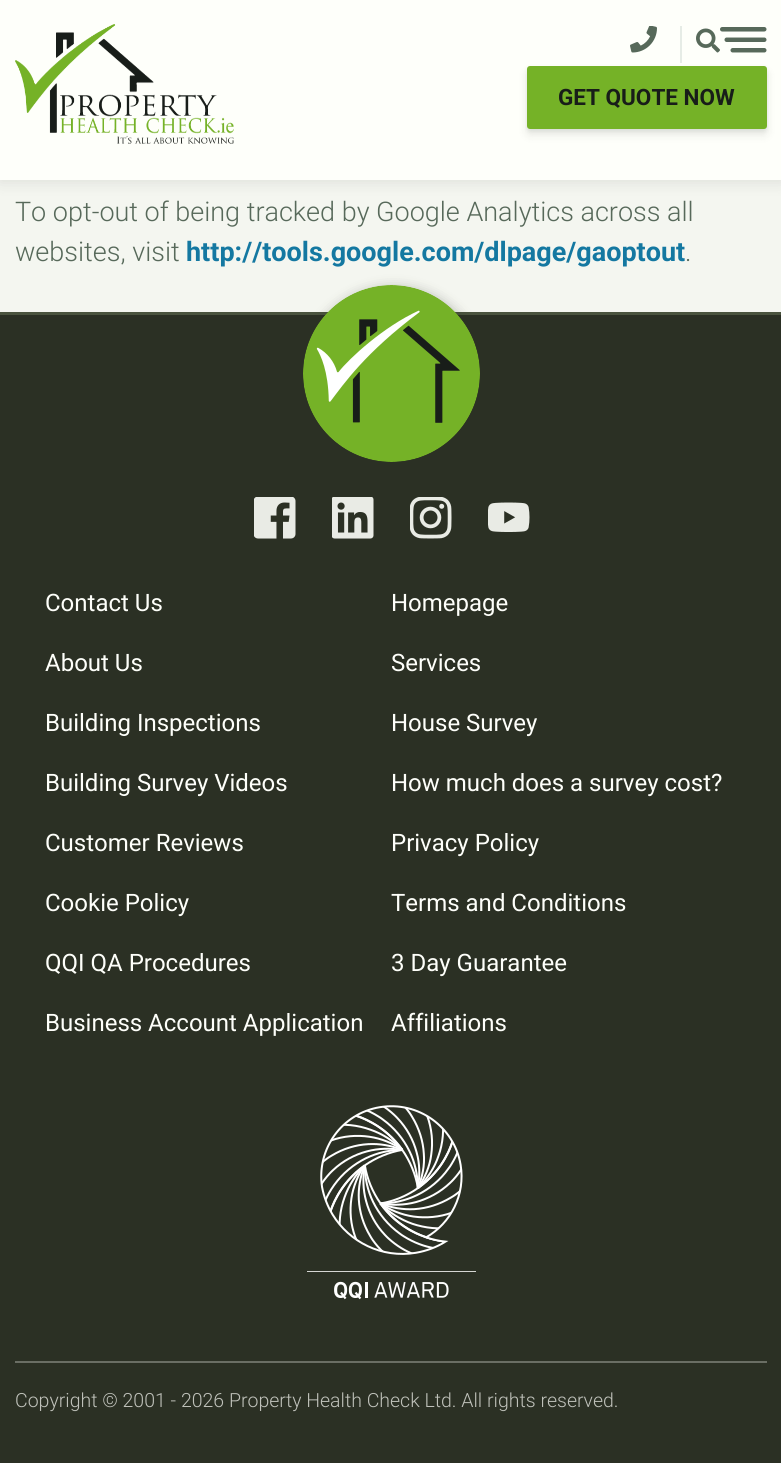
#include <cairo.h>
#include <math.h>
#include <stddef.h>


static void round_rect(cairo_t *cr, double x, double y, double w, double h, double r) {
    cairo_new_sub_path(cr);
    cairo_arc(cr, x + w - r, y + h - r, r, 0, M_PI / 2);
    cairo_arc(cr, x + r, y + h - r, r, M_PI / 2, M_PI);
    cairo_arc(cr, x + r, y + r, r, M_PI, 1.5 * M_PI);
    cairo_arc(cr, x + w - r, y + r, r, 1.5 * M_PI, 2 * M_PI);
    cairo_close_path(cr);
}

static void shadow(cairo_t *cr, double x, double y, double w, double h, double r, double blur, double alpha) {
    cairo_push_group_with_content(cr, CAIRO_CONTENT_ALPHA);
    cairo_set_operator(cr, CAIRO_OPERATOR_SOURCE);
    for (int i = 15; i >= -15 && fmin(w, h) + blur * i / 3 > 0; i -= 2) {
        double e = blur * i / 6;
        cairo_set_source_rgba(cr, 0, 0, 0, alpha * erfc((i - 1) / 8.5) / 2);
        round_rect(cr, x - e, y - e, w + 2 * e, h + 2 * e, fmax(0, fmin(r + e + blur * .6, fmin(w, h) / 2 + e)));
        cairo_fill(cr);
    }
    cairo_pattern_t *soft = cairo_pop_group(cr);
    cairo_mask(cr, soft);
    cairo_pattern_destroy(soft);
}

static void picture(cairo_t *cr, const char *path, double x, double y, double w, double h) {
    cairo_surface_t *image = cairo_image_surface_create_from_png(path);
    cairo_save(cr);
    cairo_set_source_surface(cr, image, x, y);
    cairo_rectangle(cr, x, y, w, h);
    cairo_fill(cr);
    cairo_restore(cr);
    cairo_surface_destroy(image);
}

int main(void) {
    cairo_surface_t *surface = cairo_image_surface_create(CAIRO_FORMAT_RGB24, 781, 1463);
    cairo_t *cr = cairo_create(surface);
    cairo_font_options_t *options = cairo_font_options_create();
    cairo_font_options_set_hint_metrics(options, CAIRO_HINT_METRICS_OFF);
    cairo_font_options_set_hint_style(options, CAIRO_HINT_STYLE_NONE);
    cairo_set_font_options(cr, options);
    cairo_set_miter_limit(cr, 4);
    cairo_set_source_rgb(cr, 0.957, 0.961, 0.941);
    cairo_paint(cr);
    cairo_set_source_rgb(cr, 0.094, 0.114, 0.098);
    shadow(cr, 0, 3, 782, 180, 0, 7, 0.1);
    cairo_set_source_rgb(cr, 0.996, 1, 0.98);
    cairo_rectangle(cr, 0, 0, 781, 180);
    cairo_fill(cr);
    picture(cr, "img1.png", 15, 24, 219, 120);
    cairo_set_source_rgb(cr, 0.902, 0.922, 0.902);
    cairo_rectangle(cr, 680, 26, 2, 37);
    cairo_fill(cr);
    picture(cr, "img2.png", 630, 26, 27, 27);
    picture(cr, "img3.png", 696, 27, 71, 26);
    cairo_set_source_rgb(cr, 0.094, 0.114, 0.098);
    shadow(cr, 527, 72, 240, 63, 3, 4.5, 0.1);
    cairo_set_source_rgb(cr, 0.341, 0.412, 0.353);
    shadow(cr, 527, 68, 240, 63, 3, 2, 0.11);
    cairo_set_source_rgb(cr, 0.459, 0.698, 0.153);
    round_rect(cr, 527, 66, 240, 63, 3);
    cairo_fill(cr);
    cairo_select_font_face(cr, "Roboto", CAIRO_FONT_SLANT_NORMAL, CAIRO_FONT_WEIGHT_BOLD);
    cairo_set_font_size(cr, 22.5);
    cairo_set_source_rgb(cr, 0.094, 0.114, 0.098);
    cairo_move_to(cr, 558, 105);
    cairo_show_text(cr, "GET QUOTE NOW");
    cairo_select_font_face(cr, "Roboto Light", CAIRO_FONT_SLANT_NORMAL, CAIRO_FONT_WEIGHT_NORMAL);
    cairo_set_font_size(cr, 27);
    cairo_set_source_rgb(cr, 0.341, 0.412, 0.353);
    cairo_move_to(cr, 15, 221);
    cairo_show_text(cr, "To opt-out of being tracked by Google Analytics across all");
    cairo_move_to(cr, 15, 261);
    cairo_show_text(cr, "websites, visit");
    cairo_select_font_face(cr, "Roboto", CAIRO_FONT_SLANT_NORMAL, CAIRO_FONT_WEIGHT_BOLD);
    cairo_set_source_rgb(cr, 0.082, 0.471, 0.631);
    cairo_move_to(cr, 186, 261);
    cairo_show_text(cr, "http://tools.google.com/dlpage/gaoptout");
    cairo_select_font_face(cr, "Roboto Light", CAIRO_FONT_SLANT_NORMAL, CAIRO_FONT_WEIGHT_NORMAL);
    cairo_set_source_rgb(cr, 0.341, 0.412, 0.353);
    cairo_move_to(cr, 685, 261);
    cairo_show_text(cr, ".");
    cairo_set_source_rgb(cr, 0.169, 0.188, 0.141);
    cairo_rectangle(cr, 0, 315, 781, 1148);
    cairo_fill(cr);
    cairo_set_source_rgb(cr, 0.29, 0.325, 0.243);
    cairo_rectangle(cr, 0, 312, 781, 3);
    cairo_fill(cr);
    cairo_set_source_rgb(cr, 0.169, 0.188, 0.141);
    shadow(cr, 305, 287, 177, 177, 88.5, 6, 0.3);
    picture(cr, "img4.png", 303, 285, 177, 177);
    picture(cr, "img5.png", 254, 497, 42, 42);
    picture(cr, "img6.png", 332, 497, 42, 42);
    picture(cr, "img7.png", 410, 497, 42, 42);
    picture(cr, "img8.png", 488, 502, 42, 30);
    cairo_select_font_face(cr, "Roboto", CAIRO_FONT_SLANT_NORMAL, CAIRO_FONT_WEIGHT_NORMAL);
    cairo_set_font_size(cr, 24);
    cairo_set_source_rgb(cr, 0.996, 1, 0.98);
    cairo_move_to(cr, 45, 611);
    cairo_show_text(cr, "Contact Us");
    cairo_move_to(cr, 391, 611);
    cairo_show_text(cr, "Homepage");
    cairo_move_to(cr, 45, 671);
    cairo_show_text(cr, "About Us");
    cairo_move_to(cr, 391, 671);
    cairo_show_text(cr, "Services");
    cairo_move_to(cr, 45, 731);
    cairo_show_text(cr, "Building Inspections");
    cairo_move_to(cr, 391, 731);
    cairo_show_text(cr, "House Survey");
    cairo_move_to(cr, 45, 791);
    cairo_show_text(cr, "Building Survey Videos");
    cairo_move_to(cr, 391, 791);
    cairo_show_text(cr, "How much does a survey cost?");
    cairo_move_to(cr, 45, 851);
    cairo_show_text(cr, "Customer Reviews");
    cairo_move_to(cr, 391, 851);
    cairo_show_text(cr, "Privacy Policy");
    cairo_move_to(cr, 45, 911);
    cairo_show_text(cr, "Cookie Policy");
    cairo_move_to(cr, 391, 911);
    cairo_show_text(cr, "Terms and Conditions");
    cairo_move_to(cr, 45, 971);
    cairo_show_text(cr, "QQI QA Procedures");
    cairo_move_to(cr, 391, 971);
    cairo_show_text(cr, "3 Day Guarantee");
    cairo_move_to(cr, 45, 1031);
    cairo_show_text(cr, "Business Account Application");
    cairo_move_to(cr, 391, 1031);
    cairo_show_text(cr, "Affiliations");
    picture(cr, "img9.png", 307, 1105, 169, 195);
    cairo_set_source_rgb(cr, 0.416, 0.431, 0.392);
    cairo_rectangle(cr, 15, 1361, 752, 2);
    cairo_fill(cr);
    cairo_select_font_face(cr, "Roboto Light", CAIRO_FONT_SLANT_NORMAL, CAIRO_FONT_WEIGHT_NORMAL);
    cairo_set_font_size(cr, 19.5);
    cairo_set_source_rgb(cr, 0.749, 0.757, 0.729);
    cairo_move_to(cr, 15, 1407);
    cairo_show_text(cr, "Copyright © 2001 - 2026 Property Health Check Ltd. All rights reserved.");
    cairo_surface_write_to_png(surface, "page.png");
    cairo_font_options_destroy(options);
    cairo_destroy(cr);
    cairo_surface_destroy(surface);
    return 0;
}
